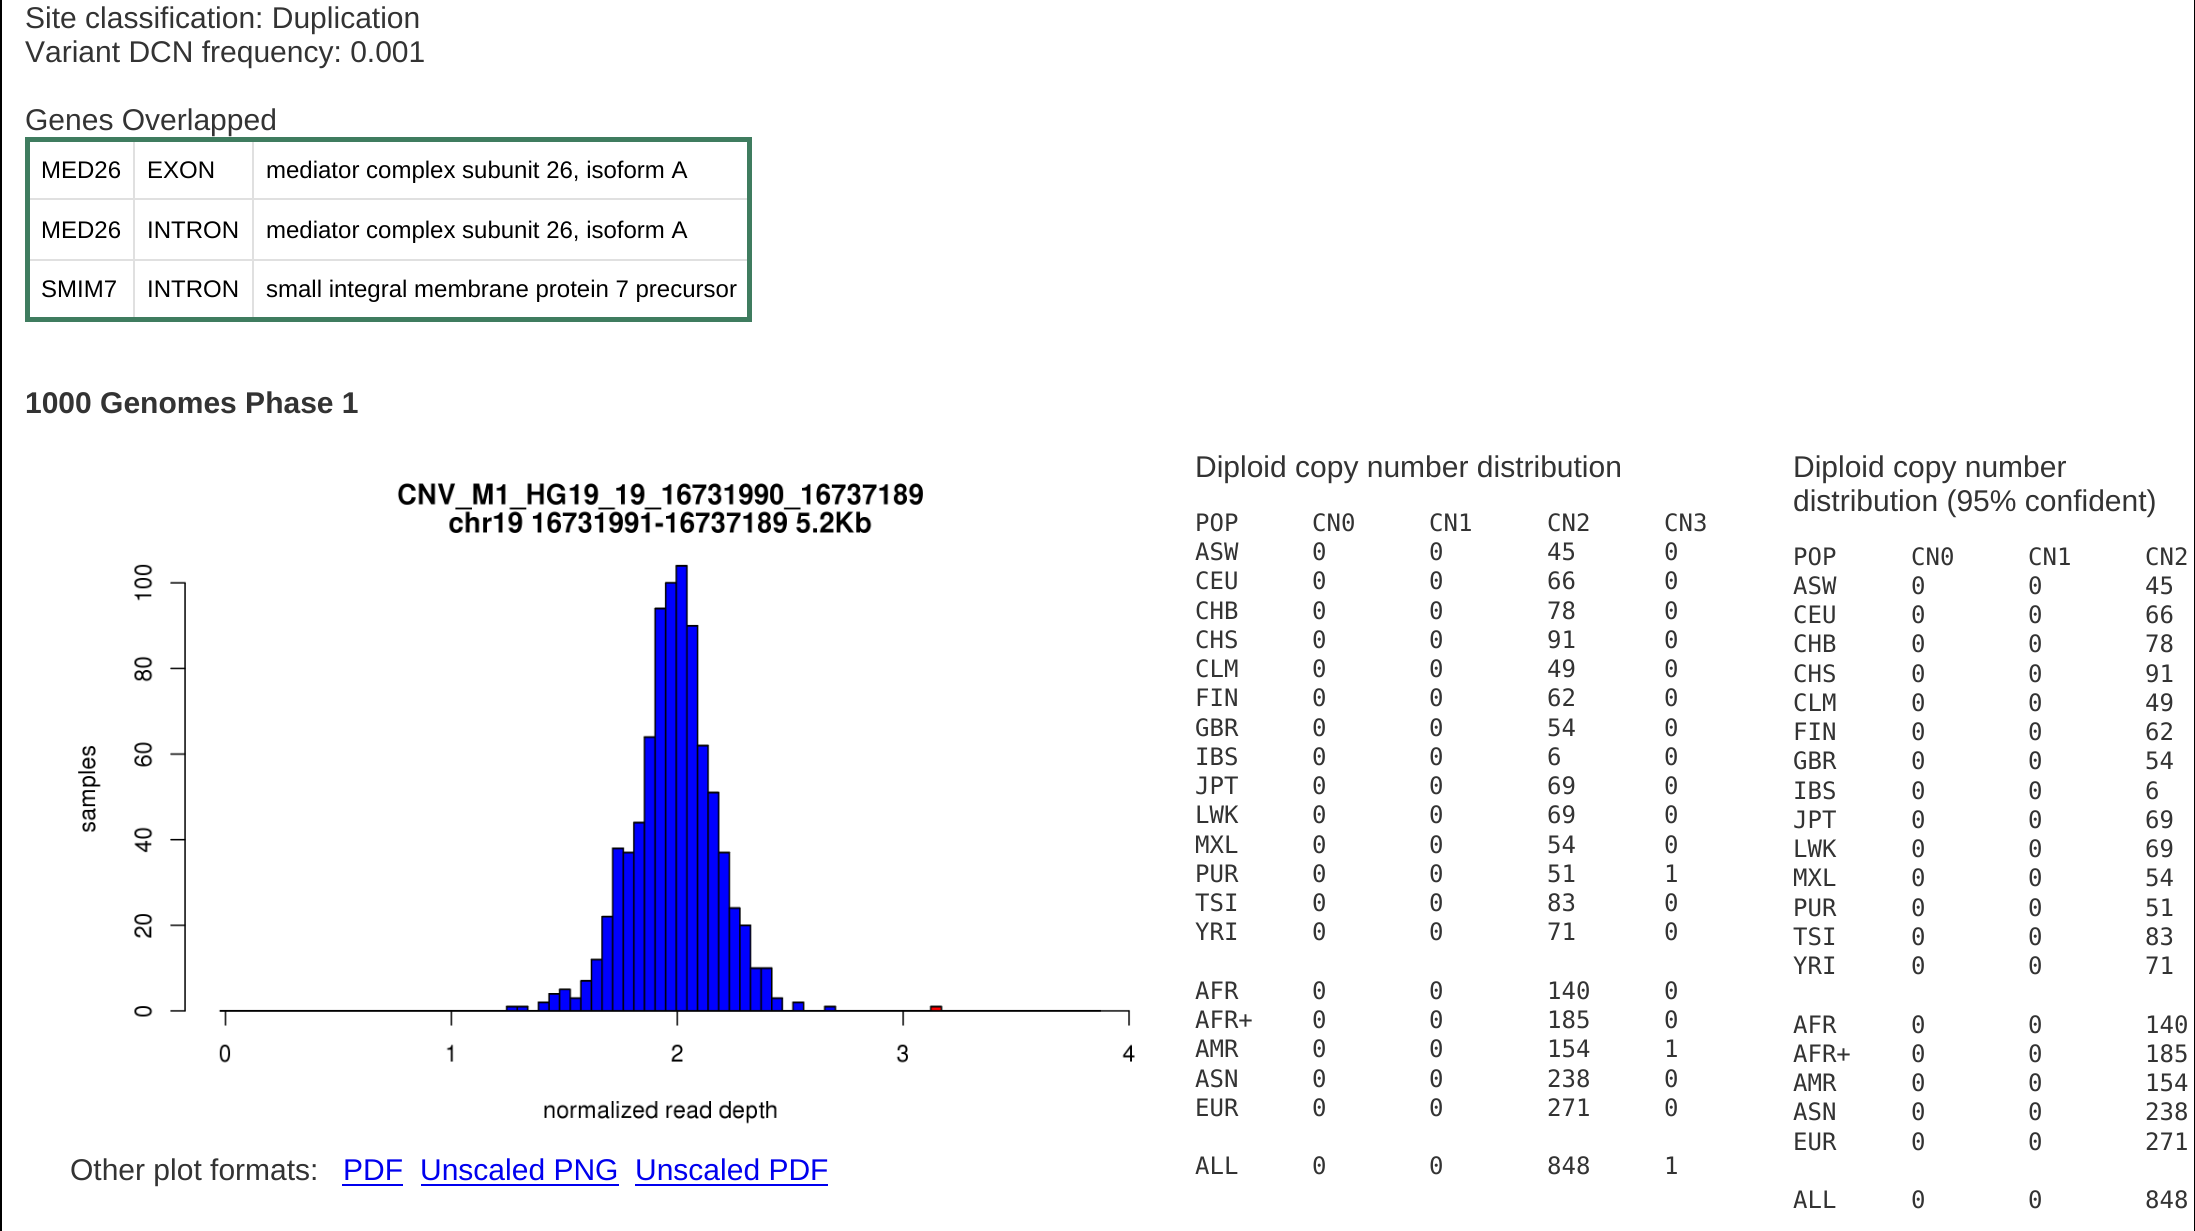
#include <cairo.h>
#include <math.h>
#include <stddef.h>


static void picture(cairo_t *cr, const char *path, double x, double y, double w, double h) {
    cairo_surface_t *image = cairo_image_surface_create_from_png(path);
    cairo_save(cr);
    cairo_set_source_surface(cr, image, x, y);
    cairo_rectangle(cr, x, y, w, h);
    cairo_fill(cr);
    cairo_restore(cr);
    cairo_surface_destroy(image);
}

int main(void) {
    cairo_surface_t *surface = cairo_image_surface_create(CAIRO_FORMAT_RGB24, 2195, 1231);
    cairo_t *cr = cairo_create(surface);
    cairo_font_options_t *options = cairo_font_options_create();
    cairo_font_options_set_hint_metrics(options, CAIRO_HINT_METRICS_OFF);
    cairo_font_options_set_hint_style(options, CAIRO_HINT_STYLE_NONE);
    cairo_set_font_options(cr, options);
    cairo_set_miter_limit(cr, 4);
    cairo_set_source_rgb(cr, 1, 1, 1);
    cairo_paint(cr);
    cairo_set_source_rgb(cr, 0, 0, 0);
    cairo_rectangle(cr, 2194, 0, 1, 1231);
    cairo_fill(cr);
    cairo_rectangle(cr, 0, 0, 2, 1231);
    cairo_fill(cr);
    cairo_select_font_face(cr, "Liberation Sans", CAIRO_FONT_SLANT_NORMAL, CAIRO_FONT_WEIGHT_NORMAL);
    cairo_set_font_size(cr, 30);
    cairo_set_source_rgb(cr, 0.2, 0.2, 0.2);
    cairo_move_to(cr, 25, 28);
    cairo_show_text(cr, "Site classification: Duplication");
    cairo_move_to(cr, 25, 62);
    cairo_show_text(cr, "Variant DCN frequency: 0.001");
    cairo_move_to(cr, 25, 130);
    cairo_show_text(cr, "Genes Overlapped");
    cairo_set_source_rgb(cr, 0.878, 0.878, 0.878);
    cairo_rectangle(cr, 252, 198, 500, 2);
    cairo_fill(cr);
    cairo_rectangle(cr, 252, 259, 500, 2);
    cairo_fill(cr);
    cairo_rectangle(cr, 252, 259, 2, 63);
    cairo_fill(cr);
    cairo_rectangle(cr, 133, 259, 121, 2);
    cairo_fill(cr);
    cairo_rectangle(cr, 252, 198, 2, 63);
    cairo_fill(cr);
    cairo_rectangle(cr, 133, 198, 121, 2);
    cairo_fill(cr);
    cairo_rectangle(cr, 133, 259, 2, 63);
    cairo_fill(cr);
    cairo_rectangle(cr, 27, 259, 108, 2);
    cairo_fill(cr);
    cairo_rectangle(cr, 133, 198, 2, 63);
    cairo_fill(cr);
    cairo_rectangle(cr, 27, 198, 108, 2);
    cairo_fill(cr);
    cairo_rectangle(cr, 133, 137, 2, 63);
    cairo_fill(cr);
    cairo_rectangle(cr, 252, 137, 2, 63);
    cairo_fill(cr);
    cairo_set_source_rgb(cr, 0.247, 0.486, 0.373);
    cairo_rectangle(cr, 25, 137, 727, 5);
    cairo_fill(cr);
    cairo_rectangle(cr, 747, 137, 5, 185);
    cairo_fill(cr);
    cairo_rectangle(cr, 25, 317, 727, 5);
    cairo_fill(cr);
    cairo_rectangle(cr, 25, 137, 5, 185);
    cairo_fill(cr);
    cairo_set_font_size(cr, 24);
    cairo_set_source_rgb(cr, 0, 0, 0);
    cairo_move_to(cr, 41, 178);
    cairo_show_text(cr, "MED26");
    cairo_move_to(cr, 147, 178);
    cairo_show_text(cr, "EXON");
    cairo_move_to(cr, 266, 178);
    cairo_show_text(cr, "mediator complex subunit 26, isoform A");
    cairo_move_to(cr, 41, 238);
    cairo_show_text(cr, "MED26");
    cairo_move_to(cr, 147, 238);
    cairo_show_text(cr, "INTRON");
    cairo_move_to(cr, 266, 238);
    cairo_show_text(cr, "mediator complex subunit 26, isoform A");
    cairo_move_to(cr, 41, 297);
    cairo_show_text(cr, "SMIM7");
    cairo_move_to(cr, 147, 297);
    cairo_show_text(cr, "INTRON");
    cairo_move_to(cr, 266, 297);
    cairo_show_text(cr, "small integral membrane protein 7 precursor");
    cairo_select_font_face(cr, "Liberation Sans", CAIRO_FONT_SLANT_NORMAL, CAIRO_FONT_WEIGHT_BOLD);
    cairo_set_font_size(cr, 30);
    cairo_set_source_rgb(cr, 0.2, 0.2, 0.2);
    cairo_move_to(cr, 25, 413);
    cairo_show_text(cr, "1000 Genomes Phase 1");
    picture(cr, "img1.png", 78, 483, 1057, 641);
    cairo_select_font_face(cr, "Liberation Sans", CAIRO_FONT_SLANT_NORMAL, CAIRO_FONT_WEIGHT_NORMAL);
    cairo_move_to(cr, 70, 1180);
    cairo_show_text(cr, "Other plot formats:");
    cairo_set_source_rgb(cr, 0, 0, 0.933);
    cairo_move_to(cr, 343, 1180);
    cairo_show_text(cr, "PDF");
    cairo_rectangle(cr, 342, 1184, 61, 2);
    cairo_fill(cr);
    cairo_move_to(cr, 420, 1180);
    cairo_show_text(cr, "Unscaled PNG");
    cairo_rectangle(cr, 421, 1184, 198, 2);
    cairo_fill(cr);
    cairo_move_to(cr, 635, 1180);
    cairo_show_text(cr, "Unscaled PDF");
    cairo_rectangle(cr, 635, 1184, 193, 2);
    cairo_fill(cr);
    cairo_set_source_rgb(cr, 0.2, 0.2, 0.2);
    cairo_move_to(cr, 1195, 477);
    cairo_show_text(cr, "Diploid copy number distribution");
    cairo_select_font_face(cr, "DejaVu Sans Mono", CAIRO_FONT_SLANT_NORMAL, CAIRO_FONT_WEIGHT_NORMAL);
    cairo_set_font_size(cr, 24);
    cairo_move_to(cr, 1195, 531);
    cairo_show_text(cr, "POP");
    cairo_move_to(cr, 1312, 531);
    cairo_show_text(cr, "CN0");
    cairo_move_to(cr, 1429, 531);
    cairo_show_text(cr, "CN1");
    cairo_move_to(cr, 1547, 531);
    cairo_show_text(cr, "CN2");
    cairo_move_to(cr, 1664, 531);
    cairo_show_text(cr, "CN3");
    cairo_move_to(cr, 1195, 560);
    cairo_show_text(cr, "ASW");
    cairo_move_to(cr, 1312, 560);
    cairo_show_text(cr, "0");
    cairo_move_to(cr, 1429, 560);
    cairo_show_text(cr, "0");
    cairo_move_to(cr, 1547, 560);
    cairo_show_text(cr, "45");
    cairo_move_to(cr, 1664, 560);
    cairo_show_text(cr, "0");
    cairo_move_to(cr, 1195, 589);
    cairo_show_text(cr, "CEU");
    cairo_move_to(cr, 1312, 589);
    cairo_show_text(cr, "0");
    cairo_move_to(cr, 1429, 589);
    cairo_show_text(cr, "0");
    cairo_move_to(cr, 1547, 589);
    cairo_show_text(cr, "66");
    cairo_move_to(cr, 1664, 589);
    cairo_show_text(cr, "0");
    cairo_move_to(cr, 1195, 619);
    cairo_show_text(cr, "CHB");
    cairo_move_to(cr, 1312, 619);
    cairo_show_text(cr, "0");
    cairo_move_to(cr, 1429, 619);
    cairo_show_text(cr, "0");
    cairo_move_to(cr, 1547, 619);
    cairo_show_text(cr, "78");
    cairo_move_to(cr, 1664, 619);
    cairo_show_text(cr, "0");
    cairo_move_to(cr, 1195, 648);
    cairo_show_text(cr, "CHS");
    cairo_move_to(cr, 1312, 648);
    cairo_show_text(cr, "0");
    cairo_move_to(cr, 1429, 648);
    cairo_show_text(cr, "0");
    cairo_move_to(cr, 1547, 648);
    cairo_show_text(cr, "91");
    cairo_move_to(cr, 1664, 648);
    cairo_show_text(cr, "0");
    cairo_move_to(cr, 1195, 677);
    cairo_show_text(cr, "CLM");
    cairo_move_to(cr, 1312, 677);
    cairo_show_text(cr, "0");
    cairo_move_to(cr, 1429, 677);
    cairo_show_text(cr, "0");
    cairo_move_to(cr, 1547, 677);
    cairo_show_text(cr, "49");
    cairo_move_to(cr, 1664, 677);
    cairo_show_text(cr, "0");
    cairo_move_to(cr, 1195, 706);
    cairo_show_text(cr, "FIN");
    cairo_move_to(cr, 1312, 706);
    cairo_show_text(cr, "0");
    cairo_move_to(cr, 1429, 706);
    cairo_show_text(cr, "0");
    cairo_move_to(cr, 1547, 706);
    cairo_show_text(cr, "62");
    cairo_move_to(cr, 1664, 706);
    cairo_show_text(cr, "0");
    cairo_move_to(cr, 1195, 736);
    cairo_show_text(cr, "GBR");
    cairo_move_to(cr, 1312, 736);
    cairo_show_text(cr, "0");
    cairo_move_to(cr, 1429, 736);
    cairo_show_text(cr, "0");
    cairo_move_to(cr, 1547, 736);
    cairo_show_text(cr, "54");
    cairo_move_to(cr, 1664, 736);
    cairo_show_text(cr, "0");
    cairo_move_to(cr, 1195, 765);
    cairo_show_text(cr, "IBS");
    cairo_move_to(cr, 1312, 765);
    cairo_show_text(cr, "0");
    cairo_move_to(cr, 1429, 765);
    cairo_show_text(cr, "0");
    cairo_move_to(cr, 1547, 765);
    cairo_show_text(cr, "6");
    cairo_move_to(cr, 1664, 765);
    cairo_show_text(cr, "0");
    cairo_move_to(cr, 1195, 794);
    cairo_show_text(cr, "JPT");
    cairo_move_to(cr, 1312, 794);
    cairo_show_text(cr, "0");
    cairo_move_to(cr, 1429, 794);
    cairo_show_text(cr, "0");
    cairo_move_to(cr, 1547, 794);
    cairo_show_text(cr, "69");
    cairo_move_to(cr, 1664, 794);
    cairo_show_text(cr, "0");
    cairo_move_to(cr, 1195, 823);
    cairo_show_text(cr, "LWK");
    cairo_move_to(cr, 1312, 823);
    cairo_show_text(cr, "0");
    cairo_move_to(cr, 1429, 823);
    cairo_show_text(cr, "0");
    cairo_move_to(cr, 1547, 823);
    cairo_show_text(cr, "69");
    cairo_move_to(cr, 1664, 823);
    cairo_show_text(cr, "0");
    cairo_move_to(cr, 1195, 853);
    cairo_show_text(cr, "MXL");
    cairo_move_to(cr, 1312, 853);
    cairo_show_text(cr, "0");
    cairo_move_to(cr, 1429, 853);
    cairo_show_text(cr, "0");
    cairo_move_to(cr, 1547, 853);
    cairo_show_text(cr, "54");
    cairo_move_to(cr, 1664, 853);
    cairo_show_text(cr, "0");
    cairo_move_to(cr, 1195, 882);
    cairo_show_text(cr, "PUR");
    cairo_move_to(cr, 1312, 882);
    cairo_show_text(cr, "0");
    cairo_move_to(cr, 1429, 882);
    cairo_show_text(cr, "0");
    cairo_move_to(cr, 1547, 882);
    cairo_show_text(cr, "51");
    cairo_move_to(cr, 1664, 882);
    cairo_show_text(cr, "1");
    cairo_move_to(cr, 1195, 911);
    cairo_show_text(cr, "TSI");
    cairo_move_to(cr, 1312, 911);
    cairo_show_text(cr, "0");
    cairo_move_to(cr, 1429, 911);
    cairo_show_text(cr, "0");
    cairo_move_to(cr, 1547, 911);
    cairo_show_text(cr, "83");
    cairo_move_to(cr, 1664, 911);
    cairo_show_text(cr, "0");
    cairo_move_to(cr, 1195, 940);
    cairo_show_text(cr, "YRI");
    cairo_move_to(cr, 1312, 940);
    cairo_show_text(cr, "0");
    cairo_move_to(cr, 1429, 940);
    cairo_show_text(cr, "0");
    cairo_move_to(cr, 1547, 940);
    cairo_show_text(cr, "71");
    cairo_move_to(cr, 1664, 940);
    cairo_show_text(cr, "0");
    cairo_move_to(cr, 1195, 999);
    cairo_show_text(cr, "AFR");
    cairo_move_to(cr, 1312, 999);
    cairo_show_text(cr, "0");
    cairo_move_to(cr, 1429, 999);
    cairo_show_text(cr, "0");
    cairo_move_to(cr, 1547, 999);
    cairo_show_text(cr, "140");
    cairo_move_to(cr, 1664, 999);
    cairo_show_text(cr, "0");
    cairo_move_to(cr, 1195, 1028);
    cairo_show_text(cr, "AFR+");
    cairo_move_to(cr, 1312, 1028);
    cairo_show_text(cr, "0");
    cairo_move_to(cr, 1429, 1028);
    cairo_show_text(cr, "0");
    cairo_move_to(cr, 1547, 1028);
    cairo_show_text(cr, "185");
    cairo_move_to(cr, 1664, 1028);
    cairo_show_text(cr, "0");
    cairo_move_to(cr, 1195, 1057);
    cairo_show_text(cr, "AMR");
    cairo_move_to(cr, 1312, 1057);
    cairo_show_text(cr, "0");
    cairo_move_to(cr, 1429, 1057);
    cairo_show_text(cr, "0");
    cairo_move_to(cr, 1547, 1057);
    cairo_show_text(cr, "154");
    cairo_move_to(cr, 1664, 1057);
    cairo_show_text(cr, "1");
    cairo_move_to(cr, 1195, 1087);
    cairo_show_text(cr, "ASN");
    cairo_move_to(cr, 1312, 1087);
    cairo_show_text(cr, "0");
    cairo_move_to(cr, 1429, 1087);
    cairo_show_text(cr, "0");
    cairo_move_to(cr, 1547, 1087);
    cairo_show_text(cr, "238");
    cairo_move_to(cr, 1664, 1087);
    cairo_show_text(cr, "0");
    cairo_move_to(cr, 1195, 1116);
    cairo_show_text(cr, "EUR");
    cairo_move_to(cr, 1312, 1116);
    cairo_show_text(cr, "0");
    cairo_move_to(cr, 1429, 1116);
    cairo_show_text(cr, "0");
    cairo_move_to(cr, 1547, 1116);
    cairo_show_text(cr, "271");
    cairo_move_to(cr, 1664, 1116);
    cairo_show_text(cr, "0");
    cairo_move_to(cr, 1195, 1174);
    cairo_show_text(cr, "ALL");
    cairo_move_to(cr, 1312, 1174);
    cairo_show_text(cr, "0");
    cairo_move_to(cr, 1429, 1174);
    cairo_show_text(cr, "0");
    cairo_move_to(cr, 1547, 1174);
    cairo_show_text(cr, "848");
    cairo_move_to(cr, 1664, 1174);
    cairo_show_text(cr, "1");
    cairo_select_font_face(cr, "Liberation Sans", CAIRO_FONT_SLANT_NORMAL, CAIRO_FONT_WEIGHT_NORMAL);
    cairo_set_font_size(cr, 30);
    cairo_move_to(cr, 1793, 477);
    cairo_show_text(cr, "Diploid copy number");
    cairo_move_to(cr, 1793, 511);
    cairo_show_text(cr, "distribution (95% confident)");
    cairo_select_font_face(cr, "DejaVu Sans Mono", CAIRO_FONT_SLANT_NORMAL, CAIRO_FONT_WEIGHT_NORMAL);
    cairo_set_font_size(cr, 24);
    cairo_move_to(cr, 1793, 565);
    cairo_show_text(cr, "POP");
    cairo_move_to(cr, 1911, 565);
    cairo_show_text(cr, "CN0");
    cairo_move_to(cr, 2028, 565);
    cairo_show_text(cr, "CN1");
    cairo_move_to(cr, 2145, 565);
    cairo_show_text(cr, "CN2");
    cairo_move_to(cr, 1793, 594);
    cairo_show_text(cr, "ASW");
    cairo_move_to(cr, 1911, 594);
    cairo_show_text(cr, "0");
    cairo_move_to(cr, 2028, 594);
    cairo_show_text(cr, "0");
    cairo_move_to(cr, 2145, 594);
    cairo_show_text(cr, "45");
    cairo_move_to(cr, 1793, 623);
    cairo_show_text(cr, "CEU");
    cairo_move_to(cr, 1911, 623);
    cairo_show_text(cr, "0");
    cairo_move_to(cr, 2028, 623);
    cairo_show_text(cr, "0");
    cairo_move_to(cr, 2145, 623);
    cairo_show_text(cr, "66");
    cairo_move_to(cr, 1793, 652);
    cairo_show_text(cr, "CHB");
    cairo_move_to(cr, 1911, 652);
    cairo_show_text(cr, "0");
    cairo_move_to(cr, 2028, 652);
    cairo_show_text(cr, "0");
    cairo_move_to(cr, 2145, 652);
    cairo_show_text(cr, "78");
    cairo_move_to(cr, 1793, 682);
    cairo_show_text(cr, "CHS");
    cairo_move_to(cr, 1911, 682);
    cairo_show_text(cr, "0");
    cairo_move_to(cr, 2028, 682);
    cairo_show_text(cr, "0");
    cairo_move_to(cr, 2145, 682);
    cairo_show_text(cr, "91");
    cairo_move_to(cr, 1793, 711);
    cairo_show_text(cr, "CLM");
    cairo_move_to(cr, 1911, 711);
    cairo_show_text(cr, "0");
    cairo_move_to(cr, 2028, 711);
    cairo_show_text(cr, "0");
    cairo_move_to(cr, 2145, 711);
    cairo_show_text(cr, "49");
    cairo_move_to(cr, 1793, 740);
    cairo_show_text(cr, "FIN");
    cairo_move_to(cr, 1911, 740);
    cairo_show_text(cr, "0");
    cairo_move_to(cr, 2028, 740);
    cairo_show_text(cr, "0");
    cairo_move_to(cr, 2145, 740);
    cairo_show_text(cr, "62");
    cairo_move_to(cr, 1793, 769);
    cairo_show_text(cr, "GBR");
    cairo_move_to(cr, 1911, 769);
    cairo_show_text(cr, "0");
    cairo_move_to(cr, 2028, 769);
    cairo_show_text(cr, "0");
    cairo_move_to(cr, 2145, 769);
    cairo_show_text(cr, "54");
    cairo_move_to(cr, 1793, 799);
    cairo_show_text(cr, "IBS");
    cairo_move_to(cr, 1911, 799);
    cairo_show_text(cr, "0");
    cairo_move_to(cr, 2028, 799);
    cairo_show_text(cr, "0");
    cairo_move_to(cr, 2145, 799);
    cairo_show_text(cr, "6");
    cairo_move_to(cr, 1793, 828);
    cairo_show_text(cr, "JPT");
    cairo_move_to(cr, 1911, 828);
    cairo_show_text(cr, "0");
    cairo_move_to(cr, 2028, 828);
    cairo_show_text(cr, "0");
    cairo_move_to(cr, 2145, 828);
    cairo_show_text(cr, "69");
    cairo_move_to(cr, 1793, 857);
    cairo_show_text(cr, "LWK");
    cairo_move_to(cr, 1911, 857);
    cairo_show_text(cr, "0");
    cairo_move_to(cr, 2028, 857);
    cairo_show_text(cr, "0");
    cairo_move_to(cr, 2145, 857);
    cairo_show_text(cr, "69");
    cairo_move_to(cr, 1793, 886);
    cairo_show_text(cr, "MXL");
    cairo_move_to(cr, 1911, 886);
    cairo_show_text(cr, "0");
    cairo_move_to(cr, 2028, 886);
    cairo_show_text(cr, "0");
    cairo_move_to(cr, 2145, 886);
    cairo_show_text(cr, "54");
    cairo_move_to(cr, 1793, 916);
    cairo_show_text(cr, "PUR");
    cairo_move_to(cr, 1911, 916);
    cairo_show_text(cr, "0");
    cairo_move_to(cr, 2028, 916);
    cairo_show_text(cr, "0");
    cairo_move_to(cr, 2145, 916);
    cairo_show_text(cr, "51");
    cairo_move_to(cr, 1793, 945);
    cairo_show_text(cr, "TSI");
    cairo_move_to(cr, 1911, 945);
    cairo_show_text(cr, "0");
    cairo_move_to(cr, 2028, 945);
    cairo_show_text(cr, "0");
    cairo_move_to(cr, 2145, 945);
    cairo_show_text(cr, "83");
    cairo_move_to(cr, 1793, 974);
    cairo_show_text(cr, "YRI");
    cairo_move_to(cr, 1911, 974);
    cairo_show_text(cr, "0");
    cairo_move_to(cr, 2028, 974);
    cairo_show_text(cr, "0");
    cairo_move_to(cr, 2145, 974);
    cairo_show_text(cr, "71");
    cairo_move_to(cr, 1793, 1033);
    cairo_show_text(cr, "AFR");
    cairo_move_to(cr, 1911, 1033);
    cairo_show_text(cr, "0");
    cairo_move_to(cr, 2028, 1033);
    cairo_show_text(cr, "0");
    cairo_move_to(cr, 2145, 1033);
    cairo_show_text(cr, "140");
    cairo_move_to(cr, 1793, 1062);
    cairo_show_text(cr, "AFR+");
    cairo_move_to(cr, 1911, 1062);
    cairo_show_text(cr, "0");
    cairo_move_to(cr, 2028, 1062);
    cairo_show_text(cr, "0");
    cairo_move_to(cr, 2145, 1062);
    cairo_show_text(cr, "185");
    cairo_move_to(cr, 1793, 1091);
    cairo_show_text(cr, "AMR");
    cairo_move_to(cr, 1911, 1091);
    cairo_show_text(cr, "0");
    cairo_move_to(cr, 2028, 1091);
    cairo_show_text(cr, "0");
    cairo_move_to(cr, 2145, 1091);
    cairo_show_text(cr, "154");
    cairo_move_to(cr, 1793, 1120);
    cairo_show_text(cr, "ASN");
    cairo_move_to(cr, 1911, 1120);
    cairo_show_text(cr, "0");
    cairo_move_to(cr, 2028, 1120);
    cairo_show_text(cr, "0");
    cairo_move_to(cr, 2145, 1120);
    cairo_show_text(cr, "238");
    cairo_move_to(cr, 1793, 1150);
    cairo_show_text(cr, "EUR");
    cairo_move_to(cr, 1911, 1150);
    cairo_show_text(cr, "0");
    cairo_move_to(cr, 2028, 1150);
    cairo_show_text(cr, "0");
    cairo_move_to(cr, 2145, 1150);
    cairo_show_text(cr, "271");
    cairo_move_to(cr, 1793, 1208);
    cairo_show_text(cr, "ALL");
    cairo_move_to(cr, 1911, 1208);
    cairo_show_text(cr, "0");
    cairo_move_to(cr, 2028, 1208);
    cairo_show_text(cr, "0");
    cairo_move_to(cr, 2145, 1208);
    cairo_show_text(cr, "848");
    cairo_surface_write_to_png(surface, "page.png");
    cairo_font_options_destroy(options);
    cairo_destroy(cr);
    cairo_surface_destroy(surface);
    return 0;
}
